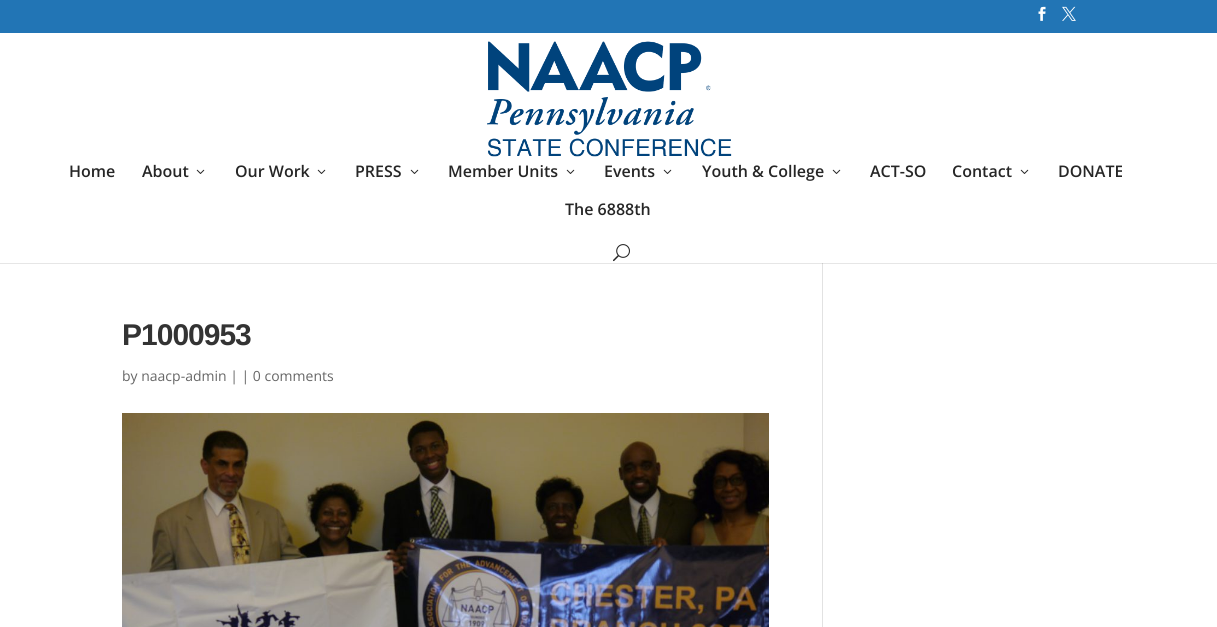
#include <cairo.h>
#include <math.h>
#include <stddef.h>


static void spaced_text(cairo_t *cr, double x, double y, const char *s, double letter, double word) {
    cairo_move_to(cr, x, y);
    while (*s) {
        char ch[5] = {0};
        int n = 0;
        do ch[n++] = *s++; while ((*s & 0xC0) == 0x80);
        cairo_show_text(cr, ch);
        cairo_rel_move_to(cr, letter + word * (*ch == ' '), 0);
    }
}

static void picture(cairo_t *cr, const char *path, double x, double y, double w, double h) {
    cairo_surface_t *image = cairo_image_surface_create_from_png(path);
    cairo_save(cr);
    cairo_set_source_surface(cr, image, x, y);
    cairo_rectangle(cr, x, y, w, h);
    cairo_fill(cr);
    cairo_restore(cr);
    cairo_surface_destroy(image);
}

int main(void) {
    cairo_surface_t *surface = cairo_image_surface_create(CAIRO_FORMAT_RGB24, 1217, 627);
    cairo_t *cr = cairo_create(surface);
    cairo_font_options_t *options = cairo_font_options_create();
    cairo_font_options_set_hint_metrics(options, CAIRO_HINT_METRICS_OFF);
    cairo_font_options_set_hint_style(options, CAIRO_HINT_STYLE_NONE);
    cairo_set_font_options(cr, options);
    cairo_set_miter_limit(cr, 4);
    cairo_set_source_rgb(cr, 1, 1, 1);
    cairo_paint(cr);
    cairo_set_source_rgb(cr, 0.902, 0.902, 0.902);
    cairo_rectangle(cr, 0, 263, 1217, 1);
    cairo_fill(cr);
    cairo_set_source_rgb(cr, 0.133, 0.459, 0.71);
    cairo_rectangle(cr, 0, 0, 1217, 33);
    cairo_fill(cr);
    picture(cr, "img1.png", 1038, 6, 8, 15);
    picture(cr, "img2.png", 1062, 6, 14, 15);
    cairo_set_source_rgb(cr, 0.886, 0.886, 0.886);
    cairo_rectangle(cr, 822, 262, 1, 365);
    cairo_fill(cr);
    cairo_set_source_rgb(cr, 1, 1, 1);
    cairo_rectangle(cr, 822, 262, 1, 1);
    cairo_fill(cr);
    picture(cr, "img3.png", 487, 41, 245, 116);
    cairo_select_font_face(cr, "Open Sans SemiBold", CAIRO_FONT_SLANT_NORMAL, CAIRO_FONT_WEIGHT_NORMAL);
    cairo_set_font_size(cr, 16);
    cairo_set_source_rgb(cr, 0.149, 0.149, 0.149);
    cairo_move_to(cr, 69, 177);
    cairo_show_text(cr, "Home");
    cairo_move_to(cr, 142, 177);
    cairo_show_text(cr, "About");
    picture(cr, "img4.png", 196, 169, 9, 5);
    cairo_move_to(cr, 235, 177);
    cairo_show_text(cr, "Our Work");
    picture(cr, "img4.png", 317, 169, 9, 5);
    cairo_move_to(cr, 355, 177);
    cairo_show_text(cr, "PRESS");
    picture(cr, "img4.png", 410, 169, 9, 5);
    cairo_move_to(cr, 448, 177);
    cairo_show_text(cr, "Member Units");
    picture(cr, "img4.png", 566, 169, 9, 5);
    cairo_move_to(cr, 604, 177);
    cairo_show_text(cr, "Events");
    picture(cr, "img4.png", 663, 169, 9, 5);
    cairo_move_to(cr, 702, 177);
    cairo_show_text(cr, "Youth & College");
    picture(cr, "img4.png", 832, 169, 9, 5);
    cairo_move_to(cr, 870, 177);
    cairo_show_text(cr, "ACT-SO");
    cairo_move_to(cr, 952, 177);
    cairo_show_text(cr, "Contact");
    picture(cr, "img4.png", 1020, 169, 9, 5);
    cairo_move_to(cr, 1058, 177);
    cairo_show_text(cr, "DONATE");
    cairo_move_to(cr, 565, 215);
    cairo_show_text(cr, "The 6888th");
    picture(cr, "img5.png", 613, 244, 17, 18);
    cairo_select_font_face(cr, "Liberation Sans", CAIRO_FONT_SLANT_NORMAL, CAIRO_FONT_WEIGHT_BOLD);
    cairo_set_font_size(cr, 30);
    cairo_set_source_rgb(cr, 0.2, 0.2, 0.2);
    spaced_text(cr, 122, 345, "P1000953", -1, 0);
    cairo_select_font_face(cr, "Open Sans", CAIRO_FONT_SLANT_NORMAL, CAIRO_FONT_WEIGHT_NORMAL);
    cairo_set_font_size(cr, 14);
    cairo_set_source_rgb(cr, 0.4, 0.4, 0.4);
    cairo_move_to(cr, 122, 381);
    cairo_show_text(cr, "by naacp-admin | | 0 comments");
    picture(cr, "img6.png", 122, 413, 647, 214);
    cairo_set_source_rgb(cr, 0.796, 0.796, 0.796);
    cairo_rectangle(cr, 822, 263, 1, 1);
    cairo_fill(cr);
    cairo_surface_write_to_png(surface, "page.png");
    cairo_font_options_destroy(options);
    cairo_destroy(cr);
    cairo_surface_destroy(surface);
    return 0;
}
